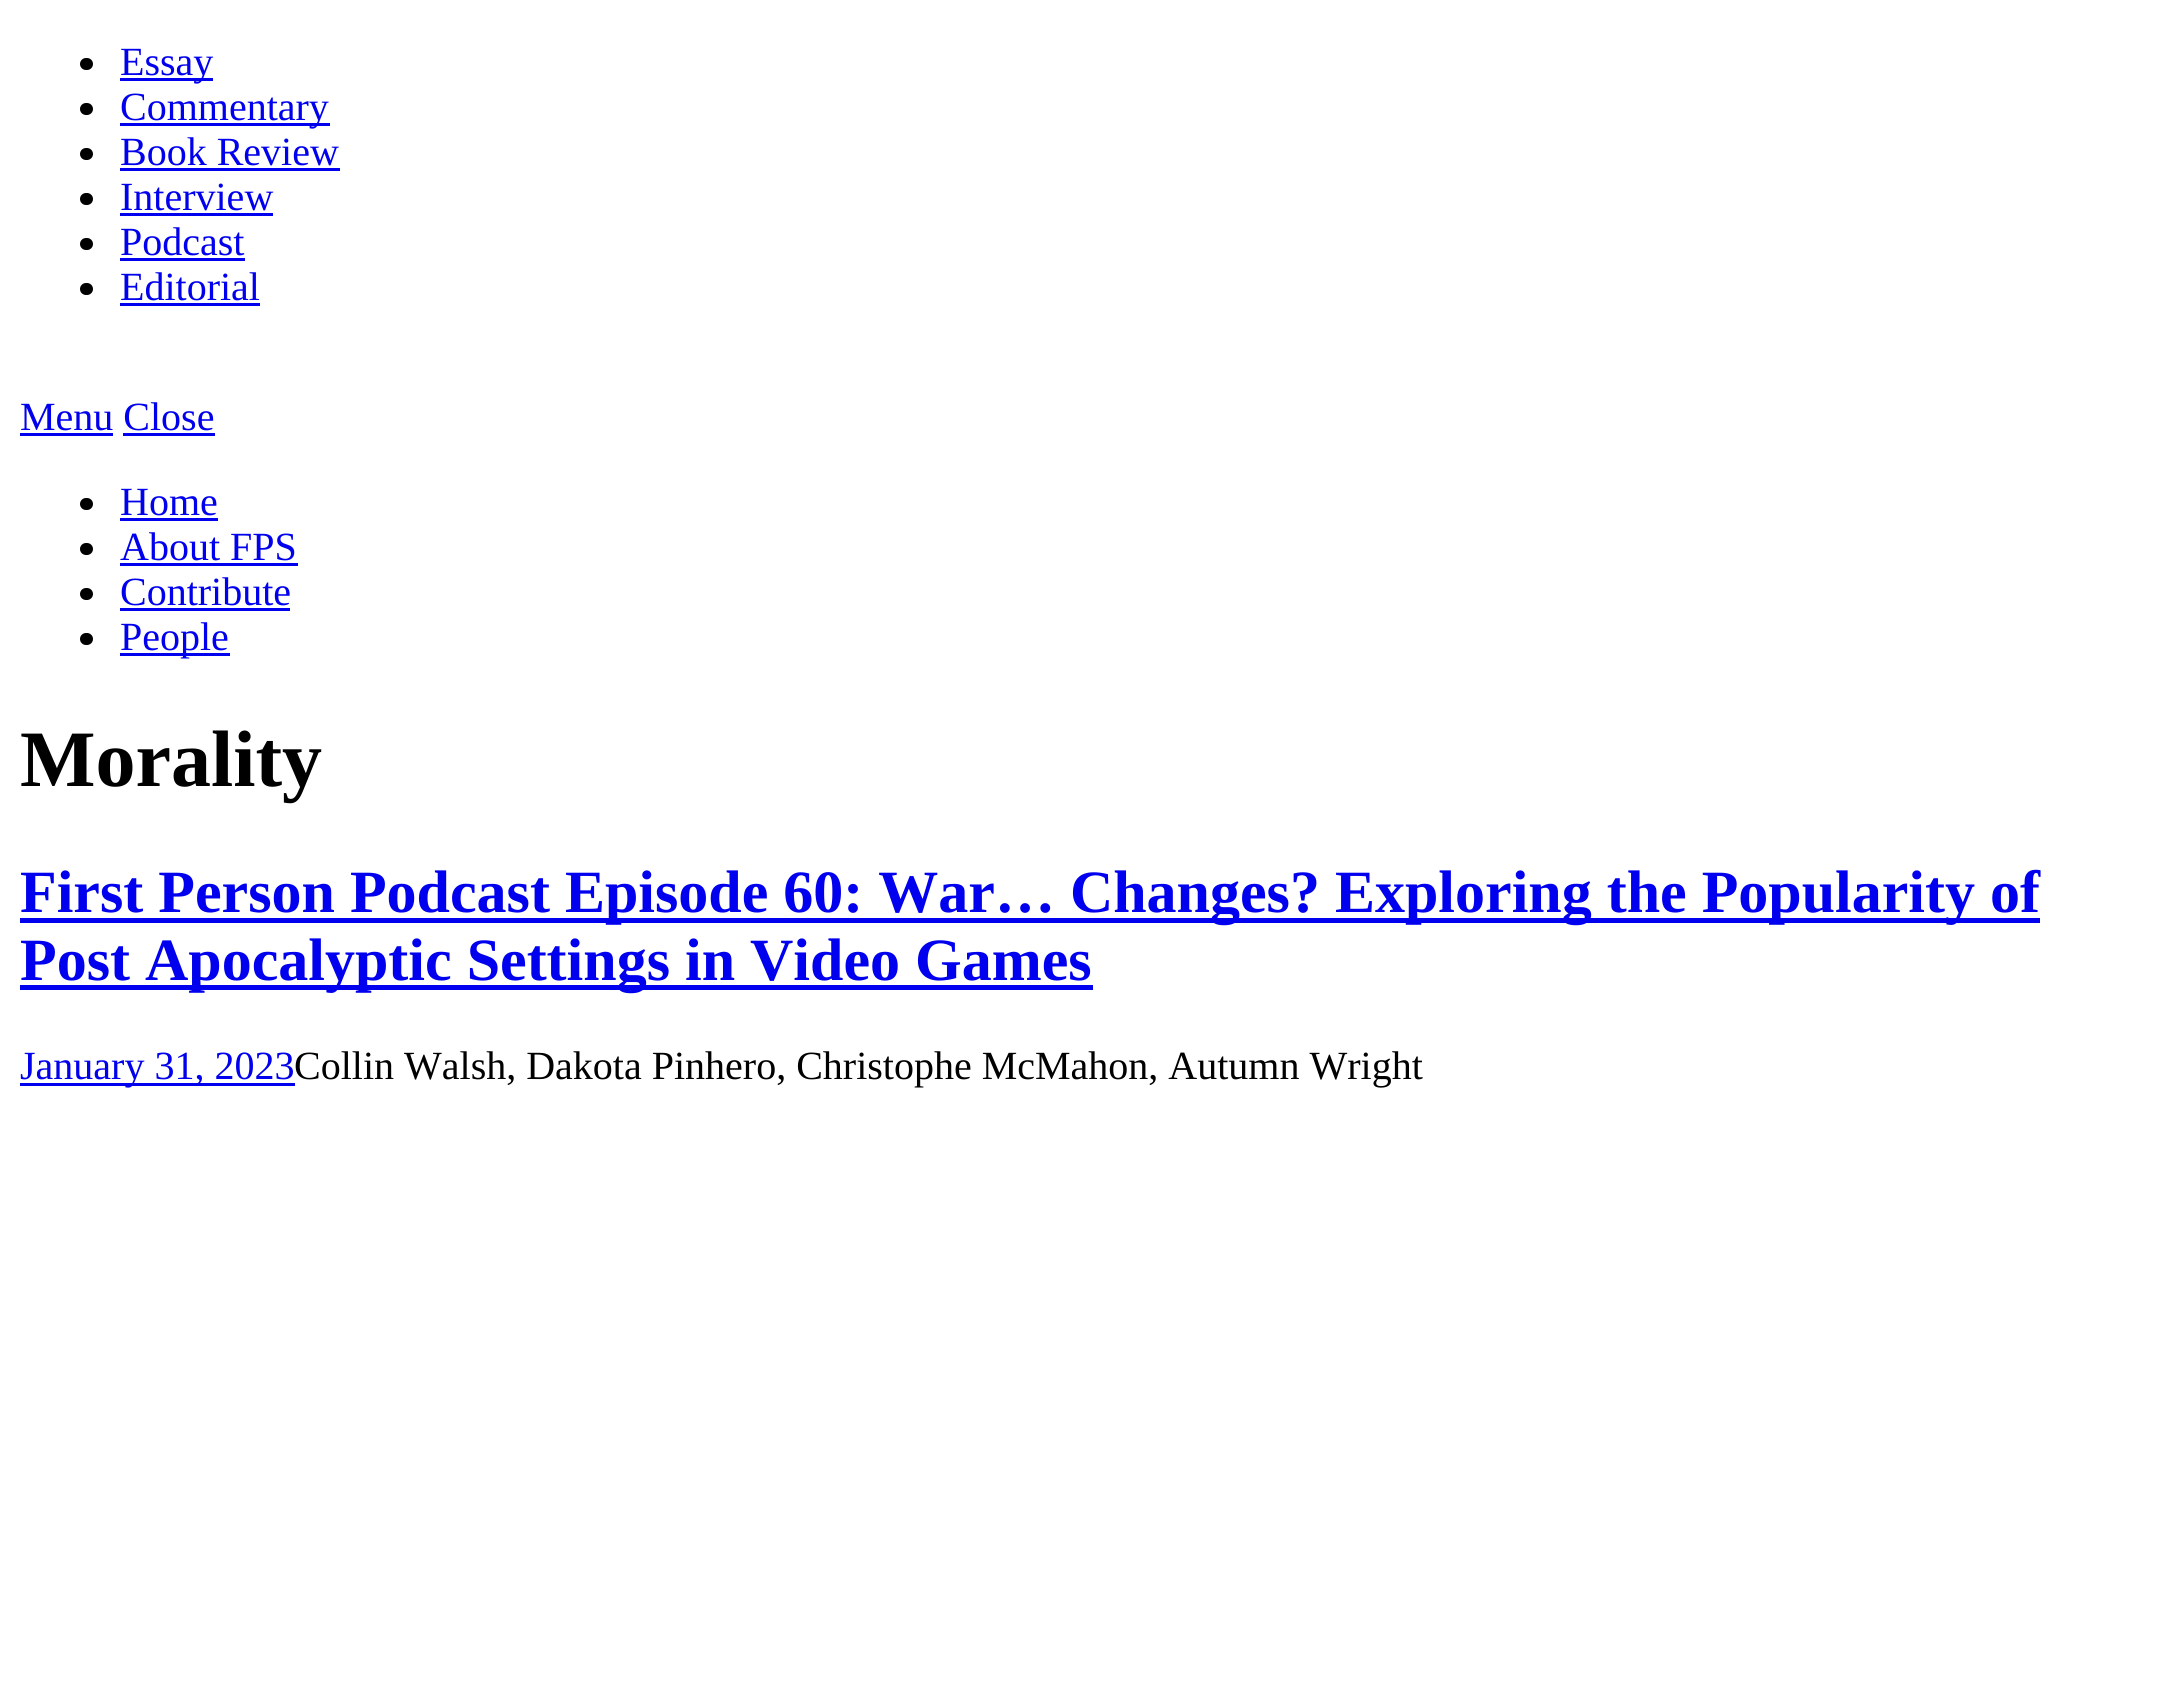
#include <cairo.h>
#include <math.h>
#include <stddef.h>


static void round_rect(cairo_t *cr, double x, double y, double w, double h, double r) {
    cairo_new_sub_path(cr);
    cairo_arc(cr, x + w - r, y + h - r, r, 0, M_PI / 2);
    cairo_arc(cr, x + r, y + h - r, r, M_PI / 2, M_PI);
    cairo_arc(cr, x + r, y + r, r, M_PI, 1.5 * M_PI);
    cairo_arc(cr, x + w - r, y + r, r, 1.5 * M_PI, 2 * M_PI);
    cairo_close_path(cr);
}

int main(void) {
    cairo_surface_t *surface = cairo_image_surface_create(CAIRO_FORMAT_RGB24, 2163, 1689);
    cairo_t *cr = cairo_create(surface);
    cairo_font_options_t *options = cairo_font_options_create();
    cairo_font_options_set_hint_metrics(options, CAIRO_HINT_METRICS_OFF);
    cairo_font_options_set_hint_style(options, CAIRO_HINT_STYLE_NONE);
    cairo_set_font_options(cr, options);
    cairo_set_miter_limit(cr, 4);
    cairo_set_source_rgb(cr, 1, 1, 1);
    cairo_paint(cr);
    cairo_set_source_rgb(cr, 0, 0, 0);
    round_rect(cr, 80, 58, 13, 12, 6);
    cairo_fill(cr);
    cairo_set_source_rgb(cr, 0, 0, 0.933);
    cairo_rectangle(cr, 120, 78, 93, 3);
    cairo_fill(cr);
    cairo_select_font_face(cr, "Liberation Serif", CAIRO_FONT_SLANT_NORMAL, CAIRO_FONT_WEIGHT_NORMAL);
    cairo_set_font_size(cr, 40);
    cairo_move_to(cr, 120, 75);
    cairo_show_text(cr, "Essay");
    cairo_set_source_rgb(cr, 0, 0, 0);
    round_rect(cr, 80, 103, 13, 12, 6);
    cairo_fill(cr);
    cairo_set_source_rgb(cr, 0, 0, 0.933);
    cairo_rectangle(cr, 120, 123, 210, 3);
    cairo_fill(cr);
    cairo_move_to(cr, 120, 120);
    cairo_show_text(cr, "Commentary");
    cairo_set_source_rgb(cr, 0, 0, 0);
    round_rect(cr, 80, 148, 13, 12, 6);
    cairo_fill(cr);
    cairo_set_source_rgb(cr, 0, 0, 0.933);
    cairo_move_to(cr, 120, 165);
    cairo_show_text(cr, "Book Review");
    cairo_rectangle(cr, 120, 168, 220, 3);
    cairo_fill(cr);
    cairo_set_source_rgb(cr, 0, 0, 0);
    round_rect(cr, 80, 193, 13, 12, 6);
    cairo_fill(cr);
    cairo_set_source_rgb(cr, 0, 0, 0.933);
    cairo_move_to(cr, 120, 210);
    cairo_show_text(cr, "Interview");
    cairo_rectangle(cr, 120, 213, 153, 3);
    cairo_fill(cr);
    cairo_set_source_rgb(cr, 0, 0, 0);
    round_rect(cr, 80, 238, 13, 12, 6);
    cairo_fill(cr);
    cairo_set_source_rgb(cr, 0, 0, 0.933);
    cairo_move_to(cr, 120, 255);
    cairo_show_text(cr, "Podcast");
    cairo_rectangle(cr, 120, 258, 125, 3);
    cairo_fill(cr);
    cairo_set_source_rgb(cr, 0, 0, 0);
    round_rect(cr, 80, 283, 13, 12, 6);
    cairo_fill(cr);
    cairo_set_source_rgb(cr, 0, 0, 0.933);
    cairo_move_to(cr, 120, 300);
    cairo_show_text(cr, "Editorial");
    cairo_rectangle(cr, 120, 303, 140, 3);
    cairo_fill(cr);
    cairo_move_to(cr, 20, 430);
    cairo_show_text(cr, "Menu Close");
    cairo_rectangle(cr, 20, 433, 93, 3);
    cairo_fill(cr);
    cairo_rectangle(cr, 123, 433, 92, 3);
    cairo_fill(cr);
    cairo_set_source_rgb(cr, 0, 0, 0);
    round_rect(cr, 80, 498, 13, 12, 6);
    cairo_fill(cr);
    cairo_set_source_rgb(cr, 0, 0, 0.933);
    cairo_move_to(cr, 120, 515);
    cairo_show_text(cr, "Home");
    cairo_rectangle(cr, 120, 518, 98, 3);
    cairo_fill(cr);
    cairo_set_source_rgb(cr, 0, 0, 0);
    round_rect(cr, 80, 543, 13, 12, 6);
    cairo_fill(cr);
    cairo_set_source_rgb(cr, 0, 0, 0.933);
    cairo_move_to(cr, 120, 560);
    cairo_show_text(cr, "About FPS");
    cairo_rectangle(cr, 120, 563, 178, 3);
    cairo_fill(cr);
    cairo_set_source_rgb(cr, 0, 0, 0);
    round_rect(cr, 80, 588, 13, 12, 6);
    cairo_fill(cr);
    cairo_set_source_rgb(cr, 0, 0, 0.933);
    cairo_move_to(cr, 120, 605);
    cairo_show_text(cr, "Contribute");
    cairo_rectangle(cr, 120, 608, 170, 3);
    cairo_fill(cr);
    cairo_set_source_rgb(cr, 0, 0, 0);
    round_rect(cr, 80, 633, 13, 12, 6);
    cairo_fill(cr);
    cairo_set_source_rgb(cr, 0, 0, 0.933);
    cairo_rectangle(cr, 120, 653, 110, 3);
    cairo_fill(cr);
    cairo_move_to(cr, 120, 650);
    cairo_show_text(cr, "People");
    cairo_select_font_face(cr, "Liberation Serif", CAIRO_FONT_SLANT_NORMAL, CAIRO_FONT_WEIGHT_BOLD);
    cairo_set_font_size(cr, 80);
    cairo_set_source_rgb(cr, 0, 0, 0);
    cairo_move_to(cr, 20, 786);
    cairo_show_text(cr, "Morality");
    cairo_set_source_rgb(cr, 0, 0, 0.933);
    cairo_rectangle(cr, 20, 918, 2020, 5);
    cairo_fill(cr);
    cairo_set_font_size(cr, 60);
    cairo_move_to(cr, 20, 912);
    cairo_show_text(cr, "First Person Podcast Episode 60: War… Changes? Exploring the Popularity of");
    cairo_rectangle(cr, 20, 985, 1073, 5);
    cairo_fill(cr);
    cairo_move_to(cr, 20, 980);
    cairo_show_text(cr, "Post Apocalyptic Settings in Video Games");
    cairo_rectangle(cr, 20, 1083, 275, 3);
    cairo_fill(cr);
    cairo_select_font_face(cr, "Liberation Serif", CAIRO_FONT_SLANT_NORMAL, CAIRO_FONT_WEIGHT_NORMAL);
    cairo_set_font_size(cr, 40);
    cairo_move_to(cr, 20, 1079);
    cairo_show_text(cr, "January 31, 2023");
    cairo_set_source_rgb(cr, 0, 0, 0);
    cairo_move_to(cr, 294, 1079);
    cairo_show_text(cr, "Collin Walsh, Dakota Pinhero, Christophe McMahon, Autumn Wright");
    cairo_surface_write_to_png(surface, "page.png");
    cairo_font_options_destroy(options);
    cairo_destroy(cr);
    cairo_surface_destroy(surface);
    return 0;
}
